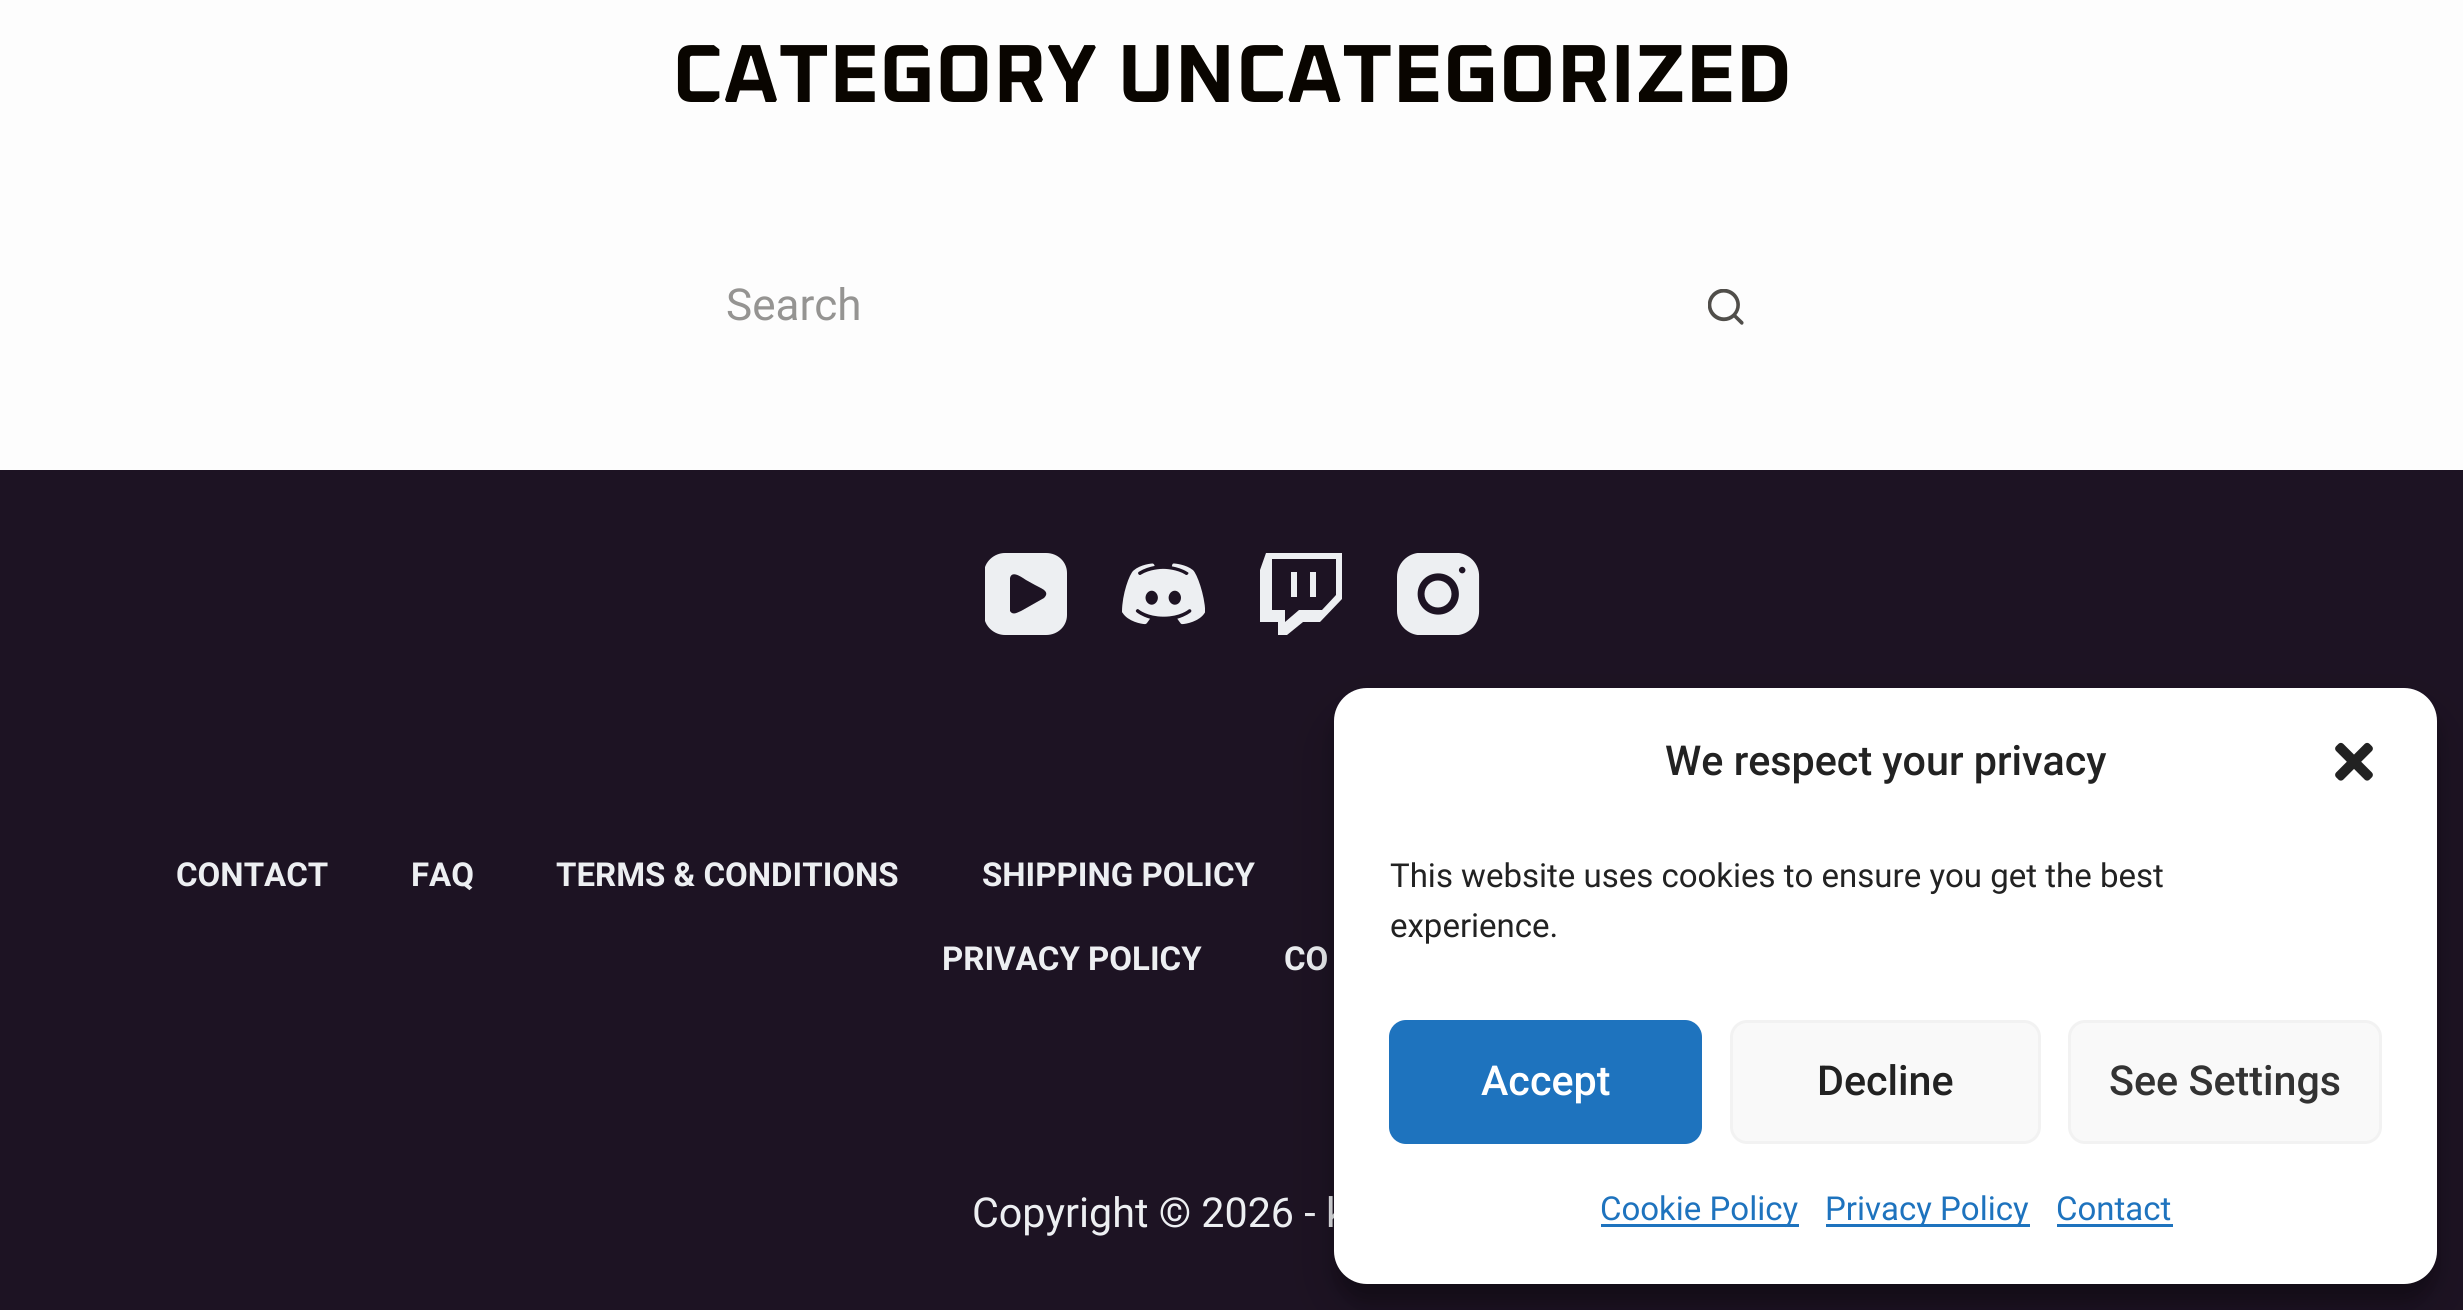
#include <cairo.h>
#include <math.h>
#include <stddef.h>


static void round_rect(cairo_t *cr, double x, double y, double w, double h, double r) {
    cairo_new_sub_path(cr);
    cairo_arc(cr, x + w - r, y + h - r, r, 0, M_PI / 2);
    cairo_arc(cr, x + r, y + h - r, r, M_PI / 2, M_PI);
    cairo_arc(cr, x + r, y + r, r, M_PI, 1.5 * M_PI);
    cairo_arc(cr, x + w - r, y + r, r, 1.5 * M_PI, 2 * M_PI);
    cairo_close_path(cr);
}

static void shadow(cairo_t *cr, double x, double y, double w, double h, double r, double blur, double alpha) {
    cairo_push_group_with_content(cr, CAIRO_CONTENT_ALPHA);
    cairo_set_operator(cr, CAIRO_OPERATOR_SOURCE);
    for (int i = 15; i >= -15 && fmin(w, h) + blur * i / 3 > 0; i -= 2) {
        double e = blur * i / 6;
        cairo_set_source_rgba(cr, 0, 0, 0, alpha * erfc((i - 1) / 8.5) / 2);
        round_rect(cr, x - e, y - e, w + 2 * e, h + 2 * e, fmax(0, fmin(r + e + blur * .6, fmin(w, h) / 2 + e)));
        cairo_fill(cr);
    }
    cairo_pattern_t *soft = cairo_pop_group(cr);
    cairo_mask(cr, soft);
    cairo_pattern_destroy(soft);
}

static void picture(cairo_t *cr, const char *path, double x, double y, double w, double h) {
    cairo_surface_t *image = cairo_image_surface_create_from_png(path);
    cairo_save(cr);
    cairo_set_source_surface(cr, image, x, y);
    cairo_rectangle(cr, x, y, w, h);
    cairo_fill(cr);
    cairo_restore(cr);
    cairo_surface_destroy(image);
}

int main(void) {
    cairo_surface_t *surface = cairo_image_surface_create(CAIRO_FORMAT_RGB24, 2463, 1310);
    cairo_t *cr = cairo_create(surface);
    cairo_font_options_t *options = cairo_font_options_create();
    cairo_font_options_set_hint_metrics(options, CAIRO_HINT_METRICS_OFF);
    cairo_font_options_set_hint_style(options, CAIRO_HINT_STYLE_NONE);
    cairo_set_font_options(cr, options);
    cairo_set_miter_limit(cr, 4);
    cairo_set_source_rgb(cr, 0.992, 0.992, 0.992);
    cairo_paint(cr);
    cairo_select_font_face(cr, "Oxanium", CAIRO_FONT_SLANT_NORMAL, CAIRO_FONT_WEIGHT_BOLD);
    cairo_set_font_size(cr, 82.5);
    cairo_set_source_rgb(cr, 0.039, 0.02, 0);
    cairo_move_to(cr, 672, 102);
    cairo_show_text(cr, "CATEGORY UNCATEGORIZED");
    cairo_select_font_face(cr, "Roboto", CAIRO_FONT_SLANT_NORMAL, CAIRO_FONT_WEIGHT_NORMAL);
    cairo_set_font_size(cr, 44);
    cairo_set_source_rgb(cr, 0.584, 0.58, 0.573);
    cairo_move_to(cr, 726, 320);
    cairo_show_text(cr, "Search");
    picture(cr, "img1.png", 1708, 289, 36, 36);
    cairo_set_source_rgb(cr, 0.114, 0.078, 0.137);
    cairo_rectangle(cr, 0, 470, 2463, 840);
    cairo_fill(cr);
    cairo_save(cr);
    cairo_rectangle(cr, 985, 553, 82, 82);
    cairo_clip(cr);
    cairo_set_source_rgb(cr, 0.929, 0.937, 0.949);
    cairo_new_path(cr);
    cairo_move_to(cr, 1046, 553);
    cairo_line_to(cr, 1005, 553);
    cairo_curve_to(cr, 994, 553, 984, 562, 984, 573);
    cairo_line_to(cr, 984, 615);
    cairo_curve_to(cr, 984, 626, 994, 635, 1005, 635);
    cairo_line_to(cr, 1046, 635);
    cairo_curve_to(cr, 1058, 635, 1067, 626, 1067, 615);
    cairo_line_to(cr, 1067, 573);
    cairo_curve_to(cr, 1067, 562, 1058, 553, 1046, 553);
    cairo_close_path(cr);
    cairo_move_to(cr, 1044, 598);
    cairo_line_to(cr, 1021, 611);
    cairo_curve_to(cr, 1018, 612, 1013, 616, 1010, 611);
    cairo_line_to(cr, 1010, 578);
    cairo_curve_to(cr, 1012, 569, 1024, 579, 1026, 580);
    cairo_line_to(cr, 1035, 585);
    cairo_curve_to(cr, 1040, 588, 1051, 591, 1044, 598);
    cairo_close_path(cr);
    cairo_fill(cr);
    cairo_restore(cr);
    picture(cr, "img2.png", 1122, 563, 83, 62);
    cairo_set_source_rgb(cr, 0.929, 0.937, 0.949);
    cairo_new_path(cr);
    cairo_move_to(cr, 1266, 553);
    cairo_line_to(cr, 1260, 570);
    cairo_line_to(cr, 1260, 622);
    cairo_line_to(cr, 1278, 622);
    cairo_line_to(cr, 1278, 635);
    cairo_line_to(cr, 1287, 635);
    cairo_line_to(cr, 1303, 622);
    cairo_line_to(cr, 1320, 622);
    cairo_line_to(cr, 1342, 599);
    cairo_line_to(cr, 1342, 553);
    cairo_close_path(cr);
    cairo_move_to(cr, 1272, 559);
    cairo_line_to(cr, 1336, 559);
    cairo_line_to(cr, 1336, 595);
    cairo_line_to(cr, 1322, 610);
    cairo_line_to(cr, 1299, 610);
    cairo_line_to(cr, 1285, 622);
    cairo_line_to(cr, 1285, 610);
    cairo_line_to(cr, 1272, 610);
    cairo_close_path(cr);
    cairo_move_to(cr, 1291, 572);
    cairo_line_to(cr, 1291, 597);
    cairo_line_to(cr, 1297, 597);
    cairo_line_to(cr, 1297, 572);
    cairo_close_path(cr);
    cairo_move_to(cr, 1310, 572);
    cairo_line_to(cr, 1310, 597);
    cairo_line_to(cr, 1316, 597);
    cairo_line_to(cr, 1316, 572);
    cairo_close_path(cr);
    cairo_fill(cr);
    picture(cr, "img3.png", 1397, 553, 83, 82);
    cairo_select_font_face(cr, "Roboto", CAIRO_FONT_SLANT_NORMAL, CAIRO_FONT_WEIGHT_BOLD);
    cairo_set_font_size(cr, 33);
    cairo_move_to(cr, 176, 886);
    cairo_show_text(cr, "CONTACT");
    cairo_move_to(cr, 411, 886);
    cairo_show_text(cr, "FAQ");
    cairo_move_to(cr, 556, 886);
    cairo_show_text(cr, "TERMS & CONDITIONS");
    cairo_move_to(cr, 982, 886);
    cairo_show_text(cr, "SHIPPING POLICY");
    cairo_move_to(cr, 942, 970);
    cairo_show_text(cr, "PRIVACY POLICY");
    cairo_move_to(cr, 1284, 970);
    cairo_show_text(cr, "CO");
    cairo_select_font_face(cr, "Roboto", CAIRO_FONT_SLANT_NORMAL, CAIRO_FONT_WEIGHT_NORMAL);
    cairo_set_font_size(cr, 41.25);
    cairo_move_to(cr, 972, 1227);
    cairo_show_text(cr, "Copyright © 2026 - k");
    cairo_set_source_rgb(cr, 0, 0, 0);
    shadow(cr, 1334, 704, 1103, 597, 33, 8, 0.23);
    shadow(cr, 1334, 715, 1103, 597, 33, 27.5, 0.19);
    cairo_set_source_rgb(cr, 1, 1, 1);
    round_rect(cr, 1334, 688, 1103, 596, 33);
    cairo_fill(cr);
    cairo_select_font_face(cr, "Roboto Medium", CAIRO_FONT_SLANT_NORMAL, CAIRO_FONT_WEIGHT_NORMAL);
    cairo_set_source_rgb(cr, 0.133, 0.133, 0.133);
    cairo_move_to(cr, 1665, 775);
    cairo_show_text(cr, "We respect your privacy");
    picture(cr, "img4.png", 2335, 742, 38, 39);
    cairo_select_font_face(cr, "Roboto", CAIRO_FONT_SLANT_NORMAL, CAIRO_FONT_WEIGHT_NORMAL);
    cairo_set_font_size(cr, 33);
    cairo_move_to(cr, 1390, 887);
    cairo_show_text(cr, "This website uses cookies to ensure you get the best");
    cairo_move_to(cr, 1390, 937);
    cairo_show_text(cr, "experience.");
    cairo_set_source_rgb(cr, 0.118, 0.451, 0.745);
    round_rect(cr, 1390.5, 1021.5, 310, 121, 15.5);
    cairo_fill_preserve(cr);
    cairo_set_line_width(cr, 3);
    cairo_stroke(cr);
    cairo_select_font_face(cr, "Roboto Medium", CAIRO_FONT_SLANT_NORMAL, CAIRO_FONT_WEIGHT_NORMAL);
    cairo_set_font_size(cr, 41.25);
    cairo_set_source_rgb(cr, 1, 1, 1);
    cairo_move_to(cr, 1481, 1095);
    cairo_show_text(cr, "Accept");
    cairo_set_source_rgb(cr, 0.976, 0.976, 0.976);
    round_rect(cr, 1731.5, 1021.5, 308, 121, 15.5);
    cairo_fill_preserve(cr);
    cairo_set_source_rgb(cr, 0.949, 0.949, 0.949);
    cairo_stroke(cr);
    cairo_set_source_rgb(cr, 0.133, 0.133, 0.133);
    cairo_move_to(cr, 1817, 1095);
    cairo_show_text(cr, "Decline");
    cairo_set_source_rgb(cr, 0.976, 0.976, 0.976);
    round_rect(cr, 2069.5, 1021.5, 311, 121, 15.5);
    cairo_fill_preserve(cr);
    cairo_set_source_rgb(cr, 0.949, 0.949, 0.949);
    cairo_stroke(cr);
    cairo_set_source_rgb(cr, 0.2, 0.2, 0.2);
    cairo_move_to(cr, 2109, 1095);
    cairo_show_text(cr, "See Settings");
    cairo_set_source_rgb(cr, 0.118, 0.451, 0.745);
    cairo_rectangle(cr, 1601, 1224, 198, 3);
    cairo_fill(cr);
    cairo_select_font_face(cr, "Roboto", CAIRO_FONT_SLANT_NORMAL, CAIRO_FONT_WEIGHT_NORMAL);
    cairo_set_font_size(cr, 33);
    cairo_move_to(cr, 1600, 1220);
    cairo_show_text(cr, "Cookie Policy");
    cairo_rectangle(cr, 1826, 1224, 204, 3);
    cairo_fill(cr);
    cairo_move_to(cr, 1825, 1220);
    cairo_show_text(cr, "Privacy Policy");
    cairo_move_to(cr, 2056, 1220);
    cairo_show_text(cr, "Contact");
    cairo_rectangle(cr, 2057, 1224, 116, 3);
    cairo_fill(cr);
    cairo_surface_write_to_png(surface, "page.png");
    cairo_font_options_destroy(options);
    cairo_destroy(cr);
    cairo_surface_destroy(surface);
    return 0;
}
